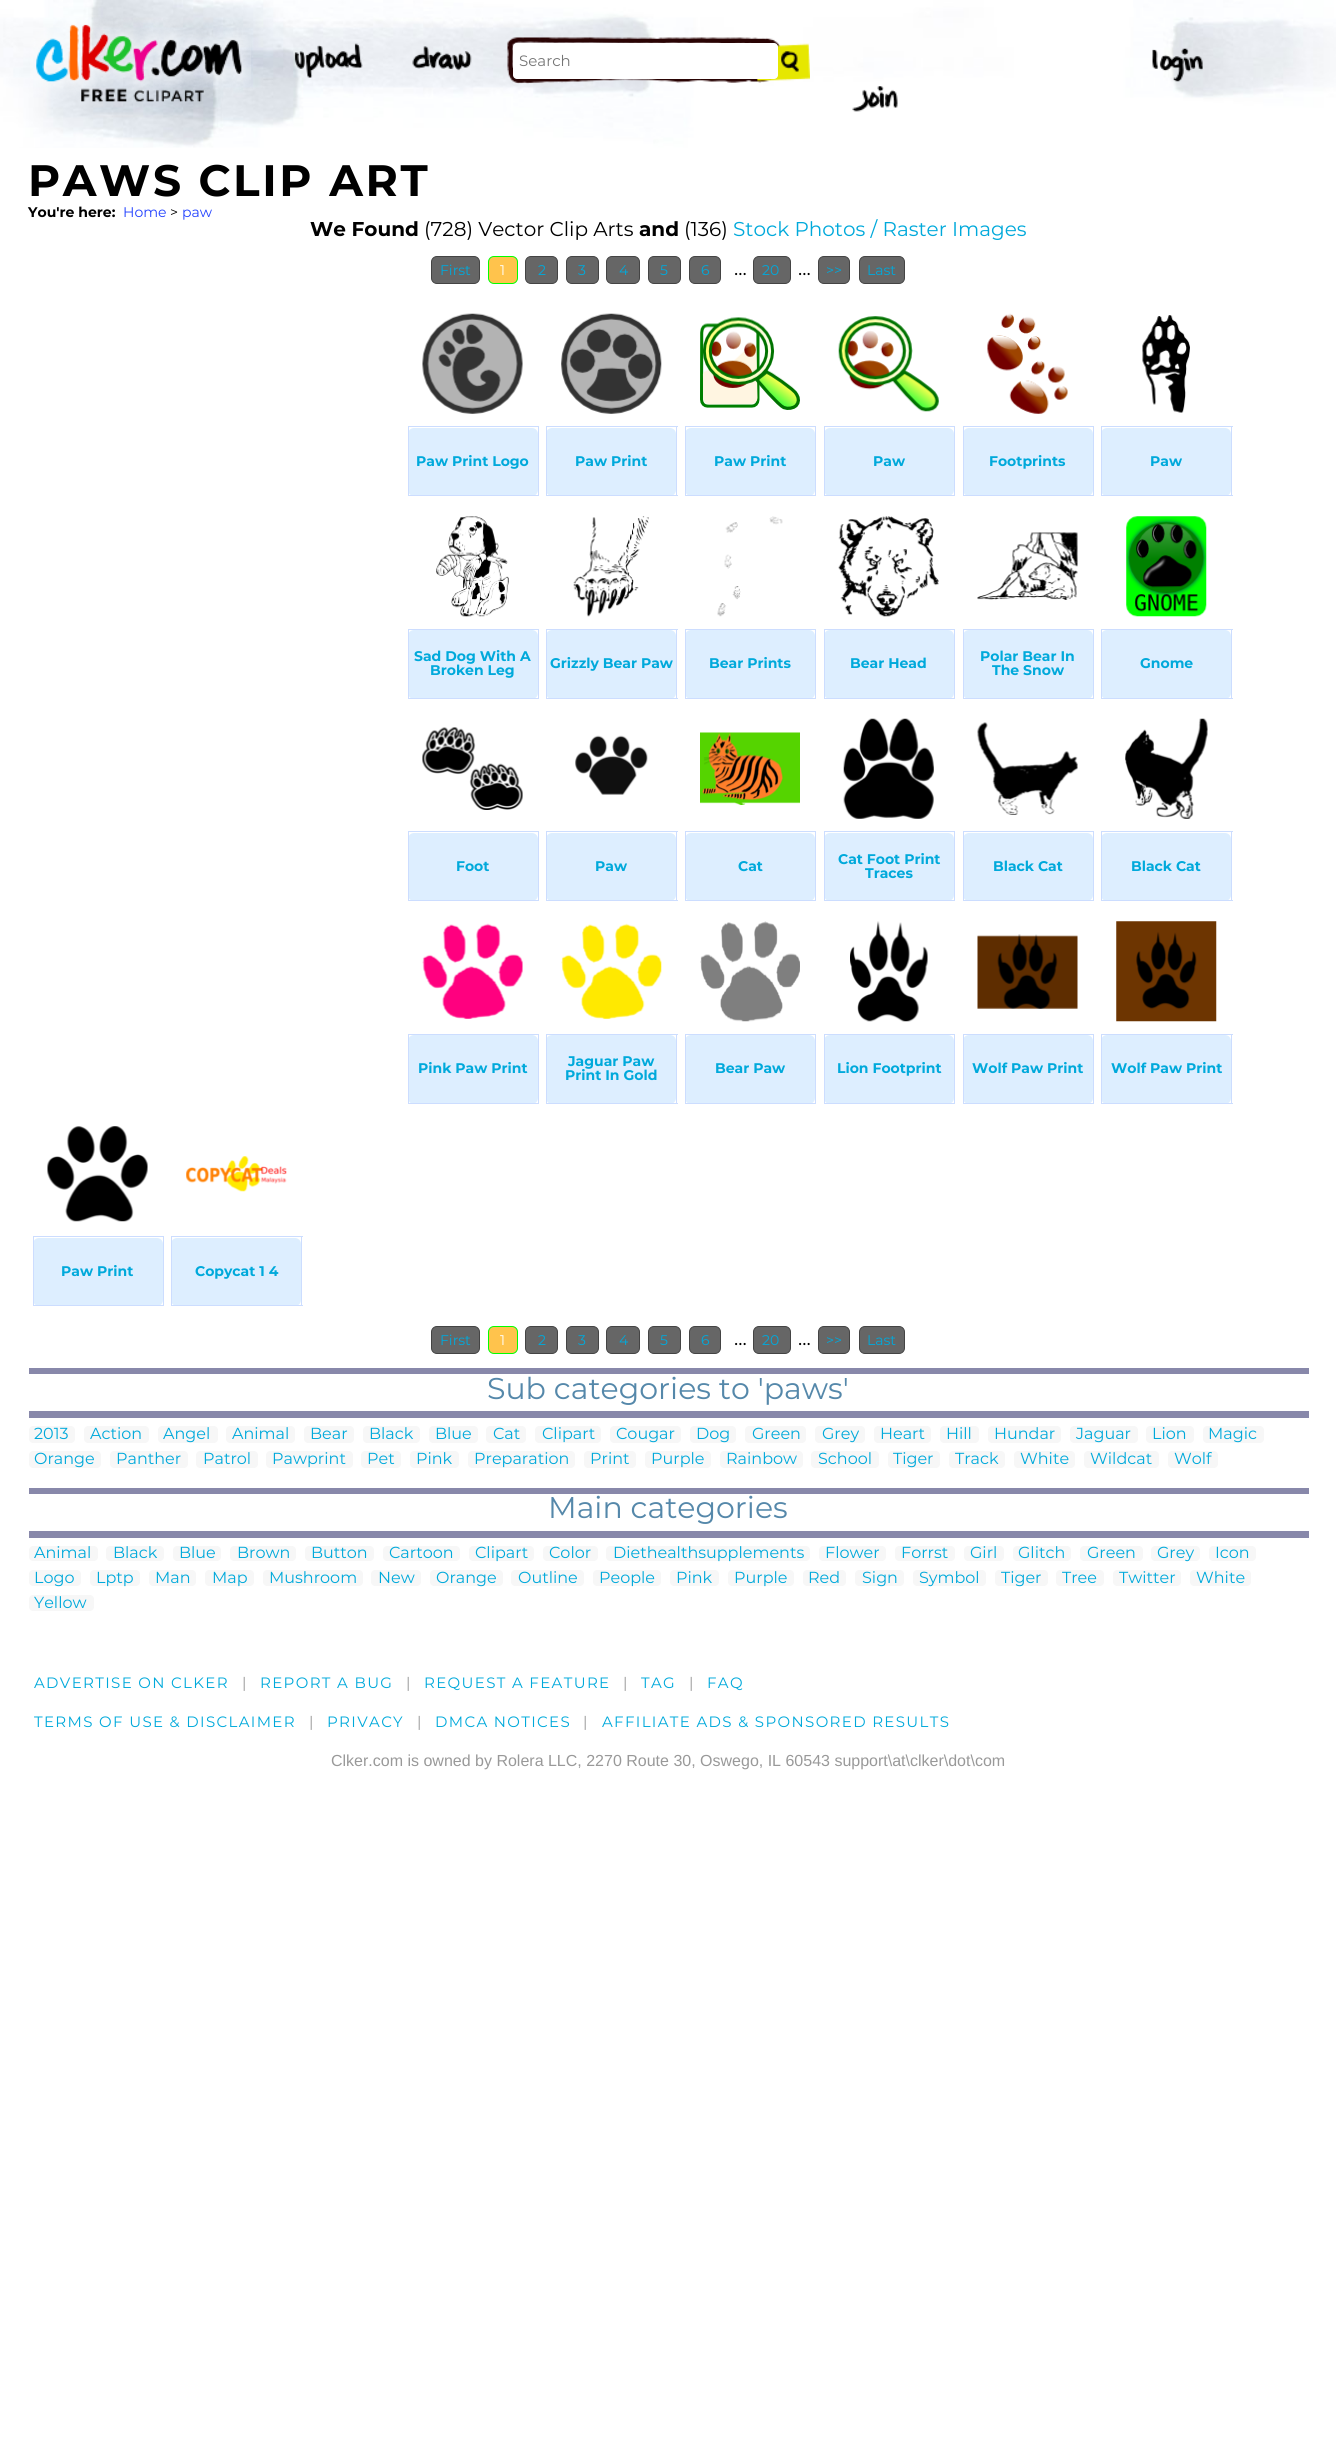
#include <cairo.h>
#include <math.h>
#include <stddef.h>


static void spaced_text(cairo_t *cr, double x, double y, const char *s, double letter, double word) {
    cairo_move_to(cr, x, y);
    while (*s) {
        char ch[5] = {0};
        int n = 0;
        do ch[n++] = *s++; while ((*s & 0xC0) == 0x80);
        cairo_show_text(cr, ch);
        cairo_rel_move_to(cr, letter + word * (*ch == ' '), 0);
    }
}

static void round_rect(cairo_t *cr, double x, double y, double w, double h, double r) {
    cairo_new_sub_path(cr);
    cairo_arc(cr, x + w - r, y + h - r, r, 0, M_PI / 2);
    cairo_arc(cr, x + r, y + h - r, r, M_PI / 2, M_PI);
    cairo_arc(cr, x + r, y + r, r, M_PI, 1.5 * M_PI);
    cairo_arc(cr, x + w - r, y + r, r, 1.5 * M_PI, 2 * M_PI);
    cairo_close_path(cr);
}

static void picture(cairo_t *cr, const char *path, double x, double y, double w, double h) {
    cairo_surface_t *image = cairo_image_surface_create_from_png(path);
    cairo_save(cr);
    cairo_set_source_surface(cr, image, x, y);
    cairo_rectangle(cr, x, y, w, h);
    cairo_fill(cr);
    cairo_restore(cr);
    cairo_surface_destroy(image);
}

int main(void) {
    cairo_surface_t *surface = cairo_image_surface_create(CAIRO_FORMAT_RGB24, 1336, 2443);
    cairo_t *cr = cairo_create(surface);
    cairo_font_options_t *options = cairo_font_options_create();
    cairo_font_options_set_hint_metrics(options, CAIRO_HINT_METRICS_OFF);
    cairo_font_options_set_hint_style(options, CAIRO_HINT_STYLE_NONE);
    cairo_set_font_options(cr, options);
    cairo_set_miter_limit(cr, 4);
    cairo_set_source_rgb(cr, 1, 1, 1);
    cairo_paint(cr);
    picture(cr, "img1.png", 0, 0, 1336, 148);
    picture(cr, "img2.png", 30, 15, 221, 87);
    picture(cr, "img3.png", 294, 43, 69, 35);
    picture(cr, "img4.png", 412, 46, 60, 25);
    picture(cr, "img5.png", 507, 37, 303, 47);
    cairo_set_source_rgb(cr, 1, 1, 1);
    round_rect(cr, 513, 43, 265, 36, 4);
    cairo_fill(cr);
    cairo_select_font_face(cr, "Montserrat", CAIRO_FONT_SLANT_NORMAL, CAIRO_FONT_WEIGHT_NORMAL);
    cairo_set_font_size(cr, 15);
    cairo_set_source_rgb(cr, 0.459, 0.459, 0.459);
    cairo_move_to(cr, 519, 66);
    cairo_show_text(cr, "Search");
    picture(cr, "img6.png", 1152, 48, 51, 34);
    picture(cr, "img7.png", 852, 86, 46, 26);
    cairo_select_font_face(cr, "Montserrat", CAIRO_FONT_SLANT_NORMAL, CAIRO_FONT_WEIGHT_BOLD);
    cairo_set_font_size(cr, 44);
    cairo_set_source_rgb(cr, 0, 0, 0);
    spaced_text(cr, 28, 196, "PAWS CLIP ART", 2.6, 0);
    cairo_set_font_size(cr, 14);
    cairo_move_to(cr, 28, 217);
    cairo_show_text(cr, "You're here:");
    cairo_select_font_face(cr, "Montserrat", CAIRO_FONT_SLANT_NORMAL, CAIRO_FONT_WEIGHT_NORMAL);
    cairo_set_source_rgb(cr, 0.125, 0.251, 1);
    cairo_move_to(cr, 123, 217);
    cairo_show_text(cr, "Home");
    cairo_set_source_rgb(cr, 0, 0, 0);
    cairo_move_to(cr, 170, 217);
    cairo_show_text(cr, ">");
    cairo_set_source_rgb(cr, 0.125, 0.251, 1);
    cairo_move_to(cr, 182, 217);
    cairo_show_text(cr, "paw");
    cairo_select_font_face(cr, "Montserrat", CAIRO_FONT_SLANT_NORMAL, CAIRO_FONT_WEIGHT_BOLD);
    cairo_set_font_size(cr, 20);
    cairo_set_source_rgb(cr, 0, 0, 0);
    cairo_move_to(cr, 310, 236);
    cairo_show_text(cr, "We Found");
    cairo_select_font_face(cr, "Montserrat", CAIRO_FONT_SLANT_NORMAL, CAIRO_FONT_WEIGHT_NORMAL);
    cairo_move_to(cr, 424, 236);
    cairo_show_text(cr, "(728) Vector Clip Arts");
    cairo_select_font_face(cr, "Montserrat", CAIRO_FONT_SLANT_NORMAL, CAIRO_FONT_WEIGHT_BOLD);
    cairo_move_to(cr, 639, 236);
    cairo_show_text(cr, "and");
    cairo_select_font_face(cr, "Montserrat", CAIRO_FONT_SLANT_NORMAL, CAIRO_FONT_WEIGHT_NORMAL);
    cairo_move_to(cr, 684, 236);
    cairo_show_text(cr, "(136)");
    cairo_set_source_rgb(cr, 0, 0.663, 0.859);
    cairo_move_to(cr, 733, 236);
    cairo_show_text(cr, "Stock Photos / Raster Images");
    cairo_set_source_rgb(cr, 0.4, 0.4, 0.4);
    round_rect(cr, 431.5, 256.5, 48, 27, 5.5);
    cairo_fill_preserve(cr);
    cairo_set_source_rgb(cr, 0.267, 0.267, 0.267);
    cairo_set_line_width(cr, 1);
    cairo_stroke(cr);
    cairo_set_font_size(cr, 14);
    cairo_set_source_rgb(cr, 0, 0.663, 0.859);
    cairo_move_to(cr, 440, 275);
    cairo_show_text(cr, "First");
    cairo_set_source_rgb(cr, 1, 0.765, 0.298);
    round_rect(cr, 488.5, 256.5, 29, 27, 5.5);
    cairo_fill_preserve(cr);
    cairo_set_source_rgb(cr, 0, 1, 0);
    cairo_stroke(cr);
    cairo_set_source_rgb(cr, 1, 1, 1);
    cairo_move_to(cr, 500, 275);
    cairo_show_text(cr, "1");
    cairo_set_source_rgb(cr, 0.4, 0.4, 0.4);
    round_rect(cr, 525.5, 256.5, 32, 27, 5.5);
    cairo_fill_preserve(cr);
    cairo_set_source_rgb(cr, 0.267, 0.267, 0.267);
    cairo_stroke(cr);
    cairo_set_source_rgb(cr, 0, 0.663, 0.859);
    cairo_move_to(cr, 538, 275);
    cairo_show_text(cr, "2");
    cairo_set_source_rgb(cr, 0.4, 0.4, 0.4);
    round_rect(cr, 566.5, 256.5, 32, 27, 5.5);
    cairo_fill_preserve(cr);
    cairo_set_source_rgb(cr, 0.267, 0.267, 0.267);
    cairo_stroke(cr);
    cairo_set_source_rgb(cr, 0, 0.663, 0.859);
    cairo_move_to(cr, 578, 275);
    cairo_show_text(cr, "3");
    cairo_set_source_rgb(cr, 0.4, 0.4, 0.4);
    round_rect(cr, 606.5, 256.5, 33, 27, 5.5);
    cairo_fill_preserve(cr);
    cairo_set_source_rgb(cr, 0.267, 0.267, 0.267);
    cairo_stroke(cr);
    cairo_set_source_rgb(cr, 0, 0.663, 0.859);
    cairo_move_to(cr, 619, 275);
    cairo_show_text(cr, "4");
    cairo_set_source_rgb(cr, 0.4, 0.4, 0.4);
    round_rect(cr, 648.5, 256.5, 32, 27, 5.5);
    cairo_fill_preserve(cr);
    cairo_set_source_rgb(cr, 0.267, 0.267, 0.267);
    cairo_stroke(cr);
    cairo_set_source_rgb(cr, 0, 0.663, 0.859);
    cairo_move_to(cr, 660, 275);
    cairo_show_text(cr, "5");
    cairo_set_source_rgb(cr, 0.4, 0.4, 0.4);
    round_rect(cr, 689.5, 256.5, 31, 27, 5.5);
    cairo_fill_preserve(cr);
    cairo_set_source_rgb(cr, 0.267, 0.267, 0.267);
    cairo_stroke(cr);
    cairo_set_source_rgb(cr, 0, 0.663, 0.859);
    cairo_move_to(cr, 701, 275);
    cairo_show_text(cr, "6");
    cairo_set_source_rgb(cr, 0.4, 0.4, 0.4);
    round_rect(cr, 753.5, 256.5, 37, 27, 5.5);
    cairo_fill_preserve(cr);
    cairo_set_source_rgb(cr, 0.267, 0.267, 0.267);
    cairo_stroke(cr);
    cairo_set_source_rgb(cr, 0, 0.663, 0.859);
    cairo_move_to(cr, 762, 275);
    cairo_show_text(cr, "20");
    cairo_set_source_rgb(cr, 0.4, 0.4, 0.4);
    round_rect(cr, 818.5, 256.5, 31, 27, 5.5);
    cairo_fill_preserve(cr);
    cairo_set_source_rgb(cr, 0.267, 0.267, 0.267);
    cairo_stroke(cr);
    cairo_set_source_rgb(cr, 0, 0.663, 0.859);
    cairo_move_to(cr, 826, 275);
    cairo_show_text(cr, ">>");
    cairo_set_source_rgb(cr, 0.4, 0.4, 0.4);
    round_rect(cr, 859.5, 256.5, 45, 27, 5.5);
    cairo_fill_preserve(cr);
    cairo_set_source_rgb(cr, 0.267, 0.267, 0.267);
    cairo_stroke(cr);
    cairo_set_source_rgb(cr, 0, 0.663, 0.859);
    cairo_move_to(cr, 867, 275);
    cairo_show_text(cr, "Last");
    cairo_set_font_size(cr, 20);
    cairo_set_source_rgb(cr, 0, 0, 0);
    cairo_move_to(cr, 734, 275);
    cairo_show_text(cr, "...");
    cairo_move_to(cr, 798, 275);
    cairo_show_text(cr, "...");
    picture(cr, "img8.png", 422, 313, 101, 101);
    cairo_set_source_rgb(cr, 0.867, 0.933, 1);
    round_rect(cr, 408, 428, 130, 68, 6);
    cairo_fill(cr);
    cairo_set_source_rgb(cr, 0.8, 0.867, 1);
    cairo_rectangle(cr, 408, 426, 131, 1);
    cairo_fill(cr);
    cairo_rectangle(cr, 538, 426, 1, 70);
    cairo_fill(cr);
    cairo_rectangle(cr, 408, 495, 131, 1);
    cairo_fill(cr);
    cairo_rectangle(cr, 408, 426, 1, 70);
    cairo_fill(cr);
    cairo_select_font_face(cr, "Montserrat", CAIRO_FONT_SLANT_NORMAL, CAIRO_FONT_WEIGHT_BOLD);
    cairo_set_font_size(cr, 14);
    cairo_set_source_rgb(cr, 0, 0.663, 0.859);
    cairo_move_to(cr, 416, 466);
    cairo_show_text(cr, "Paw Print Logo");
    picture(cr, "img9.png", 561, 313, 101, 101);
    cairo_set_source_rgb(cr, 0.867, 0.933, 1);
    round_rect(cr, 546, 428, 130, 68, 6);
    cairo_fill(cr);
    cairo_set_source_rgb(cr, 0.8, 0.867, 1);
    cairo_rectangle(cr, 546, 426, 132, 1);
    cairo_fill(cr);
    cairo_rectangle(cr, 676, 426, 1, 70);
    cairo_fill(cr);
    cairo_rectangle(cr, 546, 495, 132, 1);
    cairo_fill(cr);
    cairo_rectangle(cr, 546, 426, 1, 70);
    cairo_fill(cr);
    cairo_set_source_rgb(cr, 0, 0.663, 0.859);
    cairo_move_to(cr, 575, 466);
    cairo_show_text(cr, "Paw Print");
    picture(cr, "img10.png", 700, 317, 100, 93);
    cairo_set_source_rgb(cr, 0.867, 0.933, 1);
    round_rect(cr, 685, 428, 130, 68, 6);
    cairo_fill(cr);
    cairo_set_source_rgb(cr, 0.8, 0.867, 1);
    cairo_rectangle(cr, 685, 426, 131, 1);
    cairo_fill(cr);
    cairo_rectangle(cr, 815, 426, 1, 70);
    cairo_fill(cr);
    cairo_rectangle(cr, 685, 495, 131, 1);
    cairo_fill(cr);
    cairo_rectangle(cr, 685, 426, 1, 70);
    cairo_fill(cr);
    cairo_set_source_rgb(cr, 0, 0.663, 0.859);
    cairo_move_to(cr, 714, 466);
    cairo_show_text(cr, "Paw Print");
    picture(cr, "img11.png", 838, 316, 101, 96);
    cairo_set_source_rgb(cr, 0.867, 0.933, 1);
    round_rect(cr, 824, 428, 130, 68, 6);
    cairo_fill(cr);
    cairo_set_source_rgb(cr, 0.8, 0.867, 1);
    cairo_rectangle(cr, 824, 426, 131, 1);
    cairo_fill(cr);
    cairo_rectangle(cr, 954, 426, 1, 70);
    cairo_fill(cr);
    cairo_rectangle(cr, 824, 495, 131, 1);
    cairo_fill(cr);
    cairo_rectangle(cr, 824, 426, 1, 70);
    cairo_fill(cr);
    cairo_set_source_rgb(cr, 0, 0.663, 0.859);
    cairo_move_to(cr, 873, 466);
    cairo_show_text(cr, "Paw");
    picture(cr, "img12.png", 987, 313, 81, 101);
    cairo_set_source_rgb(cr, 0.867, 0.933, 1);
    round_rect(cr, 963, 428, 130, 68, 6);
    cairo_fill(cr);
    cairo_set_source_rgb(cr, 0.8, 0.867, 1);
    cairo_rectangle(cr, 963, 426, 131, 1);
    cairo_fill(cr);
    cairo_rectangle(cr, 1093, 426, 1, 70);
    cairo_fill(cr);
    cairo_rectangle(cr, 963, 495, 131, 1);
    cairo_fill(cr);
    cairo_rectangle(cr, 963, 426, 1, 70);
    cairo_fill(cr);
    cairo_set_source_rgb(cr, 0, 0.663, 0.859);
    cairo_move_to(cr, 989, 466);
    cairo_show_text(cr, "Footprints");
    picture(cr, "img13.png", 1142, 315, 48, 98);
    cairo_set_source_rgb(cr, 0.867, 0.933, 1);
    round_rect(cr, 1101, 428, 130, 68, 6);
    cairo_fill(cr);
    cairo_set_source_rgb(cr, 0.8, 0.867, 1);
    cairo_rectangle(cr, 1101, 426, 132, 1);
    cairo_fill(cr);
    cairo_rectangle(cr, 1231, 426, 1, 70);
    cairo_fill(cr);
    cairo_rectangle(cr, 1101, 495, 132, 1);
    cairo_fill(cr);
    cairo_rectangle(cr, 1101, 426, 1, 70);
    cairo_fill(cr);
    cairo_set_source_rgb(cr, 0, 0.663, 0.859);
    cairo_move_to(cr, 1150, 466);
    cairo_show_text(cr, "Paw");
    picture(cr, "img14.png", 436, 516, 73, 101);
    cairo_set_source_rgb(cr, 0.867, 0.933, 1);
    round_rect(cr, 408, 630, 130, 69, 6);
    cairo_fill(cr);
    cairo_set_source_rgb(cr, 0.8, 0.867, 1);
    cairo_rectangle(cr, 408, 629, 131, 1);
    cairo_fill(cr);
    cairo_rectangle(cr, 538, 629, 1, 70);
    cairo_fill(cr);
    cairo_rectangle(cr, 408, 698, 131, 1);
    cairo_fill(cr);
    cairo_rectangle(cr, 408, 629, 1, 70);
    cairo_fill(cr);
    cairo_set_source_rgb(cr, 0, 0.663, 0.859);
    cairo_move_to(cr, 414, 661);
    cairo_show_text(cr, "Sad Dog With A");
    cairo_move_to(cr, 430, 675);
    cairo_show_text(cr, "Broken Leg");
    picture(cr, "img15.png", 573, 516, 76, 101);
    cairo_set_source_rgb(cr, 0.867, 0.933, 1);
    round_rect(cr, 546, 630, 130, 69, 6);
    cairo_fill(cr);
    cairo_set_source_rgb(cr, 0.8, 0.867, 1);
    cairo_rectangle(cr, 546, 629, 132, 1);
    cairo_fill(cr);
    cairo_rectangle(cr, 676, 629, 1, 70);
    cairo_fill(cr);
    cairo_rectangle(cr, 546, 698, 132, 1);
    cairo_fill(cr);
    cairo_rectangle(cr, 546, 629, 1, 70);
    cairo_fill(cr);
    cairo_set_source_rgb(cr, 0, 0.663, 0.859);
    cairo_move_to(cr, 550, 668);
    cairo_show_text(cr, "Grizzly Bear Paw");
    picture(cr, "img16.png", 717, 516, 66, 101);
    cairo_set_source_rgb(cr, 0.867, 0.933, 1);
    round_rect(cr, 685, 630, 130, 69, 6);
    cairo_fill(cr);
    cairo_set_source_rgb(cr, 0.8, 0.867, 1);
    cairo_rectangle(cr, 685, 629, 131, 1);
    cairo_fill(cr);
    cairo_rectangle(cr, 815, 629, 1, 70);
    cairo_fill(cr);
    cairo_rectangle(cr, 685, 698, 131, 1);
    cairo_fill(cr);
    cairo_rectangle(cr, 685, 629, 1, 70);
    cairo_fill(cr);
    cairo_set_source_rgb(cr, 0, 0.663, 0.859);
    cairo_move_to(cr, 709, 668);
    cairo_show_text(cr, "Bear Prints");
    picture(cr, "img17.png", 838, 516, 101, 101);
    cairo_set_source_rgb(cr, 0.867, 0.933, 1);
    round_rect(cr, 824, 630, 130, 69, 6);
    cairo_fill(cr);
    cairo_set_source_rgb(cr, 0.8, 0.867, 1);
    cairo_rectangle(cr, 824, 629, 131, 1);
    cairo_fill(cr);
    cairo_rectangle(cr, 954, 629, 1, 70);
    cairo_fill(cr);
    cairo_rectangle(cr, 824, 698, 131, 1);
    cairo_fill(cr);
    cairo_rectangle(cr, 824, 629, 1, 70);
    cairo_fill(cr);
    cairo_set_source_rgb(cr, 0, 0.663, 0.859);
    cairo_move_to(cr, 850, 668);
    cairo_show_text(cr, "Bear Head");
    picture(cr, "img18.png", 977, 532, 101, 68);
    cairo_set_source_rgb(cr, 0.867, 0.933, 1);
    round_rect(cr, 963, 630, 130, 69, 6);
    cairo_fill(cr);
    cairo_set_source_rgb(cr, 0.8, 0.867, 1);
    cairo_rectangle(cr, 963, 629, 131, 1);
    cairo_fill(cr);
    cairo_rectangle(cr, 1093, 629, 1, 70);
    cairo_fill(cr);
    cairo_rectangle(cr, 963, 698, 131, 1);
    cairo_fill(cr);
    cairo_rectangle(cr, 963, 629, 1, 70);
    cairo_fill(cr);
    cairo_set_source_rgb(cr, 0, 0.663, 0.859);
    cairo_move_to(cr, 980, 661);
    cairo_show_text(cr, "Polar Bear In");
    cairo_move_to(cr, 992, 675);
    cairo_show_text(cr, "The Snow");
    picture(cr, "img19.png", 1126, 516, 81, 101);
    cairo_set_source_rgb(cr, 0.867, 0.933, 1);
    round_rect(cr, 1101, 630, 130, 69, 6);
    cairo_fill(cr);
    cairo_set_source_rgb(cr, 0.8, 0.867, 1);
    cairo_rectangle(cr, 1101, 629, 132, 1);
    cairo_fill(cr);
    cairo_rectangle(cr, 1231, 629, 1, 70);
    cairo_fill(cr);
    cairo_rectangle(cr, 1101, 698, 132, 1);
    cairo_fill(cr);
    cairo_rectangle(cr, 1101, 629, 1, 70);
    cairo_fill(cr);
    cairo_set_source_rgb(cr, 0, 0.663, 0.859);
    cairo_move_to(cr, 1140, 668);
    cairo_show_text(cr, "Gnome");
    picture(cr, "img20.png", 422, 727, 101, 83);
    cairo_set_source_rgb(cr, 0.867, 0.933, 1);
    round_rect(cr, 408, 833, 130, 68, 6);
    cairo_fill(cr);
    cairo_set_source_rgb(cr, 0.8, 0.867, 1);
    cairo_rectangle(cr, 408, 831, 131, 1);
    cairo_fill(cr);
    cairo_rectangle(cr, 538, 831, 1, 70);
    cairo_fill(cr);
    cairo_rectangle(cr, 408, 900, 131, 1);
    cairo_fill(cr);
    cairo_rectangle(cr, 408, 831, 1, 70);
    cairo_fill(cr);
    cairo_set_source_rgb(cr, 0, 0.663, 0.859);
    cairo_move_to(cr, 456, 871);
    cairo_show_text(cr, "Foot");
    picture(cr, "img21.png", 575, 735, 73, 60);
    cairo_set_source_rgb(cr, 0.867, 0.933, 1);
    round_rect(cr, 546, 833, 130, 68, 6);
    cairo_fill(cr);
    cairo_set_source_rgb(cr, 0.8, 0.867, 1);
    cairo_rectangle(cr, 546, 831, 132, 1);
    cairo_fill(cr);
    cairo_rectangle(cr, 676, 831, 1, 70);
    cairo_fill(cr);
    cairo_rectangle(cr, 546, 900, 132, 1);
    cairo_fill(cr);
    cairo_rectangle(cr, 546, 831, 1, 70);
    cairo_fill(cr);
    cairo_set_source_rgb(cr, 0, 0.663, 0.859);
    cairo_move_to(cr, 595, 871);
    cairo_show_text(cr, "Paw");
    picture(cr, "img22.png", 700, 732, 100, 73);
    cairo_set_source_rgb(cr, 0.867, 0.933, 1);
    round_rect(cr, 685, 833, 130, 68, 6);
    cairo_fill(cr);
    cairo_set_source_rgb(cr, 0.8, 0.867, 1);
    cairo_rectangle(cr, 685, 831, 131, 1);
    cairo_fill(cr);
    cairo_rectangle(cr, 815, 831, 1, 70);
    cairo_fill(cr);
    cairo_rectangle(cr, 685, 900, 131, 1);
    cairo_fill(cr);
    cairo_rectangle(cr, 685, 831, 1, 70);
    cairo_fill(cr);
    cairo_set_source_rgb(cr, 0, 0.663, 0.859);
    cairo_move_to(cr, 738, 871);
    cairo_show_text(cr, "Cat");
    picture(cr, "img23.png", 843, 718, 91, 101);
    cairo_set_source_rgb(cr, 0.867, 0.933, 1);
    round_rect(cr, 824, 833, 130, 68, 6);
    cairo_fill(cr);
    cairo_set_source_rgb(cr, 0.8, 0.867, 1);
    cairo_rectangle(cr, 824, 831, 131, 1);
    cairo_fill(cr);
    cairo_rectangle(cr, 954, 831, 1, 70);
    cairo_fill(cr);
    cairo_rectangle(cr, 824, 900, 131, 1);
    cairo_fill(cr);
    cairo_rectangle(cr, 824, 831, 1, 70);
    cairo_fill(cr);
    cairo_set_source_rgb(cr, 0, 0.663, 0.859);
    cairo_move_to(cr, 838, 864);
    cairo_show_text(cr, "Cat Foot Print");
    cairo_move_to(cr, 865, 878);
    cairo_show_text(cr, "Traces");
    picture(cr, "img24.png", 977, 722, 101, 93);
    cairo_set_source_rgb(cr, 0.867, 0.933, 1);
    round_rect(cr, 963, 833, 130, 68, 6);
    cairo_fill(cr);
    cairo_set_source_rgb(cr, 0.8, 0.867, 1);
    cairo_rectangle(cr, 963, 831, 131, 1);
    cairo_fill(cr);
    cairo_rectangle(cr, 1093, 831, 1, 70);
    cairo_fill(cr);
    cairo_rectangle(cr, 963, 900, 131, 1);
    cairo_fill(cr);
    cairo_rectangle(cr, 963, 831, 1, 70);
    cairo_fill(cr);
    cairo_set_source_rgb(cr, 0, 0.663, 0.859);
    cairo_move_to(cr, 993, 871);
    cairo_show_text(cr, "Black Cat");
    picture(cr, "img25.png", 1125, 718, 83, 101);
    cairo_set_source_rgb(cr, 0.867, 0.933, 1);
    round_rect(cr, 1101, 833, 130, 68, 6);
    cairo_fill(cr);
    cairo_set_source_rgb(cr, 0.8, 0.867, 1);
    cairo_rectangle(cr, 1101, 831, 132, 1);
    cairo_fill(cr);
    cairo_rectangle(cr, 1231, 831, 1, 70);
    cairo_fill(cr);
    cairo_rectangle(cr, 1101, 900, 132, 1);
    cairo_fill(cr);
    cairo_rectangle(cr, 1101, 831, 1, 70);
    cairo_fill(cr);
    cairo_set_source_rgb(cr, 0, 0.663, 0.859);
    cairo_move_to(cr, 1131, 871);
    cairo_show_text(cr, "Black Cat");
    picture(cr, "img26.png", 422, 923, 101, 96);
    cairo_set_source_rgb(cr, 0.867, 0.933, 1);
    round_rect(cr, 408, 1035, 130, 69, 6);
    cairo_fill(cr);
    cairo_set_source_rgb(cr, 0.8, 0.867, 1);
    cairo_rectangle(cr, 408, 1034, 131, 1);
    cairo_fill(cr);
    cairo_rectangle(cr, 538, 1034, 1, 70);
    cairo_fill(cr);
    cairo_rectangle(cr, 408, 1103, 131, 1);
    cairo_fill(cr);
    cairo_rectangle(cr, 408, 1034, 1, 70);
    cairo_fill(cr);
    cairo_set_source_rgb(cr, 0, 0.663, 0.859);
    cairo_move_to(cr, 418, 1073);
    cairo_show_text(cr, "Pink Paw Print");
    picture(cr, "img27.png", 561, 923, 101, 96);
    cairo_set_source_rgb(cr, 0.867, 0.933, 1);
    round_rect(cr, 546, 1035, 130, 69, 6);
    cairo_fill(cr);
    cairo_set_source_rgb(cr, 0.8, 0.867, 1);
    cairo_rectangle(cr, 546, 1034, 132, 1);
    cairo_fill(cr);
    cairo_rectangle(cr, 676, 1034, 1, 70);
    cairo_fill(cr);
    cairo_rectangle(cr, 546, 1103, 132, 1);
    cairo_fill(cr);
    cairo_rectangle(cr, 546, 1034, 1, 70);
    cairo_fill(cr);
    cairo_set_source_rgb(cr, 0, 0.663, 0.859);
    cairo_move_to(cr, 568, 1066);
    cairo_show_text(cr, "Jaguar Paw");
    cairo_move_to(cr, 565, 1080);
    cairo_show_text(cr, "Print In Gold");
    picture(cr, "img28.png", 700, 921, 100, 101);
    cairo_set_source_rgb(cr, 0.867, 0.933, 1);
    round_rect(cr, 685, 1035, 130, 69, 6);
    cairo_fill(cr);
    cairo_set_source_rgb(cr, 0.8, 0.867, 1);
    cairo_rectangle(cr, 685, 1034, 131, 1);
    cairo_fill(cr);
    cairo_rectangle(cr, 815, 1034, 1, 70);
    cairo_fill(cr);
    cairo_rectangle(cr, 685, 1103, 131, 1);
    cairo_fill(cr);
    cairo_rectangle(cr, 685, 1034, 1, 70);
    cairo_fill(cr);
    cairo_set_source_rgb(cr, 0, 0.663, 0.859);
    cairo_move_to(cr, 715, 1073);
    cairo_show_text(cr, "Bear Paw");
    picture(cr, "img29.png", 850, 921, 78, 101);
    cairo_set_source_rgb(cr, 0.867, 0.933, 1);
    round_rect(cr, 824, 1035, 130, 69, 6);
    cairo_fill(cr);
    cairo_set_source_rgb(cr, 0.8, 0.867, 1);
    cairo_rectangle(cr, 824, 1034, 131, 1);
    cairo_fill(cr);
    cairo_rectangle(cr, 954, 1034, 1, 70);
    cairo_fill(cr);
    cairo_rectangle(cr, 824, 1103, 131, 1);
    cairo_fill(cr);
    cairo_rectangle(cr, 824, 1034, 1, 70);
    cairo_fill(cr);
    cairo_set_source_rgb(cr, 0, 0.663, 0.859);
    cairo_move_to(cr, 837, 1073);
    cairo_show_text(cr, "Lion Footprint");
    picture(cr, "img30.png", 977, 934, 101, 75);
    cairo_set_source_rgb(cr, 0.867, 0.933, 1);
    round_rect(cr, 963, 1035, 130, 69, 6);
    cairo_fill(cr);
    cairo_set_source_rgb(cr, 0.8, 0.867, 1);
    cairo_rectangle(cr, 963, 1034, 131, 1);
    cairo_fill(cr);
    cairo_rectangle(cr, 1093, 1034, 1, 70);
    cairo_fill(cr);
    cairo_rectangle(cr, 963, 1103, 131, 1);
    cairo_fill(cr);
    cairo_rectangle(cr, 963, 1034, 1, 70);
    cairo_fill(cr);
    cairo_set_source_rgb(cr, 0, 0.663, 0.859);
    cairo_move_to(cr, 972, 1073);
    cairo_show_text(cr, "Wolf Paw Print");
    picture(cr, "img31.png", 1116, 921, 101, 101);
    cairo_set_source_rgb(cr, 0.867, 0.933, 1);
    round_rect(cr, 1101, 1035, 130, 69, 6);
    cairo_fill(cr);
    cairo_set_source_rgb(cr, 0.8, 0.867, 1);
    cairo_rectangle(cr, 1101, 1034, 132, 1);
    cairo_fill(cr);
    cairo_rectangle(cr, 1231, 1034, 1, 70);
    cairo_fill(cr);
    cairo_rectangle(cr, 1101, 1103, 132, 1);
    cairo_fill(cr);
    cairo_rectangle(cr, 1101, 1034, 1, 70);
    cairo_fill(cr);
    cairo_set_source_rgb(cr, 0, 0.663, 0.859);
    cairo_move_to(cr, 1111, 1073);
    cairo_show_text(cr, "Wolf Paw Print");
    picture(cr, "img32.png", 47, 1126, 101, 96);
    cairo_set_source_rgb(cr, 0.867, 0.933, 1);
    round_rect(cr, 33, 1238, 130, 68, 6);
    cairo_fill(cr);
    cairo_set_source_rgb(cr, 0.8, 0.867, 1);
    cairo_rectangle(cr, 33, 1236, 131, 1);
    cairo_fill(cr);
    cairo_rectangle(cr, 163, 1236, 1, 70);
    cairo_fill(cr);
    cairo_rectangle(cr, 33, 1305, 131, 1);
    cairo_fill(cr);
    cairo_rectangle(cr, 33, 1236, 1, 70);
    cairo_fill(cr);
    cairo_set_source_rgb(cr, 0, 0.663, 0.859);
    cairo_move_to(cr, 61, 1276);
    cairo_show_text(cr, "Paw Print");
    picture(cr, "img33.png", 186, 1156, 101, 36);
    cairo_set_source_rgb(cr, 0.867, 0.933, 1);
    round_rect(cr, 171, 1238, 130, 68, 6);
    cairo_fill(cr);
    cairo_set_source_rgb(cr, 0.8, 0.867, 1);
    cairo_rectangle(cr, 171, 1236, 132, 1);
    cairo_fill(cr);
    cairo_rectangle(cr, 301, 1236, 1, 70);
    cairo_fill(cr);
    cairo_rectangle(cr, 171, 1305, 132, 1);
    cairo_fill(cr);
    cairo_rectangle(cr, 171, 1236, 1, 70);
    cairo_fill(cr);
    cairo_set_source_rgb(cr, 0, 0.663, 0.859);
    cairo_move_to(cr, 195, 1276);
    cairo_show_text(cr, "Copycat 1 4");
    cairo_set_source_rgb(cr, 0.4, 0.4, 0.4);
    round_rect(cr, 431.5, 1326.5, 48, 27, 5.5);
    cairo_fill_preserve(cr);
    cairo_set_source_rgb(cr, 0.267, 0.267, 0.267);
    cairo_stroke(cr);
    cairo_select_font_face(cr, "Montserrat", CAIRO_FONT_SLANT_NORMAL, CAIRO_FONT_WEIGHT_NORMAL);
    cairo_set_source_rgb(cr, 0, 0.663, 0.859);
    cairo_move_to(cr, 440, 1345);
    cairo_show_text(cr, "First");
    cairo_set_source_rgb(cr, 1, 0.765, 0.298);
    round_rect(cr, 488.5, 1326.5, 29, 27, 5.5);
    cairo_fill_preserve(cr);
    cairo_set_source_rgb(cr, 0, 1, 0);
    cairo_stroke(cr);
    cairo_set_source_rgb(cr, 1, 1, 1);
    cairo_move_to(cr, 500, 1345);
    cairo_show_text(cr, "1");
    cairo_set_source_rgb(cr, 0.4, 0.4, 0.4);
    round_rect(cr, 525.5, 1326.5, 32, 27, 5.5);
    cairo_fill_preserve(cr);
    cairo_set_source_rgb(cr, 0.267, 0.267, 0.267);
    cairo_stroke(cr);
    cairo_set_source_rgb(cr, 0, 0.663, 0.859);
    cairo_move_to(cr, 538, 1345);
    cairo_show_text(cr, "2");
    cairo_set_source_rgb(cr, 0.4, 0.4, 0.4);
    round_rect(cr, 566.5, 1326.5, 32, 27, 5.5);
    cairo_fill_preserve(cr);
    cairo_set_source_rgb(cr, 0.267, 0.267, 0.267);
    cairo_stroke(cr);
    cairo_set_source_rgb(cr, 0, 0.663, 0.859);
    cairo_move_to(cr, 578, 1345);
    cairo_show_text(cr, "3");
    cairo_set_source_rgb(cr, 0.4, 0.4, 0.4);
    round_rect(cr, 606.5, 1326.5, 33, 27, 5.5);
    cairo_fill_preserve(cr);
    cairo_set_source_rgb(cr, 0.267, 0.267, 0.267);
    cairo_stroke(cr);
    cairo_set_source_rgb(cr, 0, 0.663, 0.859);
    cairo_move_to(cr, 619, 1345);
    cairo_show_text(cr, "4");
    cairo_set_source_rgb(cr, 0.4, 0.4, 0.4);
    round_rect(cr, 648.5, 1326.5, 32, 27, 5.5);
    cairo_fill_preserve(cr);
    cairo_set_source_rgb(cr, 0.267, 0.267, 0.267);
    cairo_stroke(cr);
    cairo_set_source_rgb(cr, 0, 0.663, 0.859);
    cairo_move_to(cr, 660, 1345);
    cairo_show_text(cr, "5");
    cairo_set_source_rgb(cr, 0.4, 0.4, 0.4);
    round_rect(cr, 689.5, 1326.5, 31, 27, 5.5);
    cairo_fill_preserve(cr);
    cairo_set_source_rgb(cr, 0.267, 0.267, 0.267);
    cairo_stroke(cr);
    cairo_set_source_rgb(cr, 0, 0.663, 0.859);
    cairo_move_to(cr, 701, 1345);
    cairo_show_text(cr, "6");
    cairo_set_source_rgb(cr, 0.4, 0.4, 0.4);
    round_rect(cr, 753.5, 1326.5, 37, 27, 5.5);
    cairo_fill_preserve(cr);
    cairo_set_source_rgb(cr, 0.267, 0.267, 0.267);
    cairo_stroke(cr);
    cairo_set_source_rgb(cr, 0, 0.663, 0.859);
    cairo_move_to(cr, 762, 1345);
    cairo_show_text(cr, "20");
    cairo_set_source_rgb(cr, 0.4, 0.4, 0.4);
    round_rect(cr, 818.5, 1326.5, 31, 27, 5.5);
    cairo_fill_preserve(cr);
    cairo_set_source_rgb(cr, 0.267, 0.267, 0.267);
    cairo_stroke(cr);
    cairo_set_source_rgb(cr, 0, 0.663, 0.859);
    cairo_move_to(cr, 826, 1345);
    cairo_show_text(cr, ">>");
    cairo_set_source_rgb(cr, 0.4, 0.4, 0.4);
    round_rect(cr, 859.5, 1326.5, 45, 27, 5.5);
    cairo_fill_preserve(cr);
    cairo_set_source_rgb(cr, 0.267, 0.267, 0.267);
    cairo_stroke(cr);
    cairo_set_source_rgb(cr, 0, 0.663, 0.859);
    cairo_move_to(cr, 867, 1345);
    cairo_show_text(cr, "Last");
    cairo_set_font_size(cr, 20);
    cairo_set_source_rgb(cr, 0, 0, 0);
    cairo_move_to(cr, 734, 1345);
    cairo_show_text(cr, "...");
    cairo_move_to(cr, 798, 1345);
    cairo_show_text(cr, "...");
    cairo_set_source_rgb(cr, 0.533, 0.533, 0.667);
    cairo_rectangle(cr, 29, 1368, 1280, 6);
    cairo_fill(cr);
    cairo_rectangle(cr, 29, 1411, 1280, 7);
    cairo_fill(cr);
    cairo_set_font_size(cr, 30);
    cairo_set_source_rgb(cr, 0.333, 0.533, 0.667);
    cairo_move_to(cr, 487, 1399);
    cairo_show_text(cr, "Sub categories to 'paws'");
    cairo_set_source_rgb(cr, 0.965, 0.965, 0.965);
    round_rect(cr, 29, 1426, 46, 17, 4);
    cairo_fill(cr);
    cairo_set_font_size(cr, 16);
    cairo_set_source_rgb(cr, 0, 0.663, 0.859);
    cairo_move_to(cr, 34, 1439);
    cairo_show_text(cr, "2013");
    cairo_set_source_rgb(cr, 0.965, 0.965, 0.965);
    round_rect(cr, 84, 1426, 65, 17, 4);
    cairo_fill(cr);
    cairo_set_source_rgb(cr, 0, 0.663, 0.859);
    cairo_move_to(cr, 90, 1439);
    cairo_show_text(cr, "Action");
    cairo_set_source_rgb(cr, 0.965, 0.965, 0.965);
    round_rect(cr, 158, 1426, 60, 17, 4);
    cairo_fill(cr);
    cairo_set_source_rgb(cr, 0, 0.663, 0.859);
    cairo_move_to(cr, 163, 1439);
    cairo_show_text(cr, "Angel");
    cairo_set_source_rgb(cr, 0.965, 0.965, 0.965);
    round_rect(cr, 226, 1426, 69, 17, 4);
    cairo_fill(cr);
    cairo_set_source_rgb(cr, 0, 0.663, 0.859);
    cairo_move_to(cr, 232, 1439);
    cairo_show_text(cr, "Animal");
    cairo_set_source_rgb(cr, 0.965, 0.965, 0.965);
    round_rect(cr, 304, 1426, 50, 17, 4);
    cairo_fill(cr);
    cairo_set_source_rgb(cr, 0, 0.663, 0.859);
    cairo_move_to(cr, 310, 1439);
    cairo_show_text(cr, "Bear");
    cairo_set_source_rgb(cr, 0.965, 0.965, 0.965);
    round_rect(cr, 363, 1426, 57, 17, 4);
    cairo_fill(cr);
    cairo_set_source_rgb(cr, 0, 0.663, 0.859);
    cairo_move_to(cr, 369, 1439);
    cairo_show_text(cr, "Black");
    cairo_set_source_rgb(cr, 0.965, 0.965, 0.965);
    round_rect(cr, 429, 1426, 49, 17, 4);
    cairo_fill(cr);
    cairo_set_source_rgb(cr, 0, 0.663, 0.859);
    cairo_move_to(cr, 435, 1439);
    cairo_show_text(cr, "Blue");
    cairo_set_source_rgb(cr, 0.965, 0.965, 0.965);
    round_rect(cr, 486, 1426, 40, 17, 4);
    cairo_fill(cr);
    cairo_set_source_rgb(cr, 0, 0.663, 0.859);
    cairo_move_to(cr, 493, 1439);
    cairo_show_text(cr, "Cat");
    cairo_set_source_rgb(cr, 0.965, 0.965, 0.965);
    round_rect(cr, 535, 1426, 66, 17, 4);
    cairo_fill(cr);
    cairo_set_source_rgb(cr, 0, 0.663, 0.859);
    cairo_move_to(cr, 542, 1439);
    cairo_show_text(cr, "Clipart");
    cairo_set_source_rgb(cr, 0.965, 0.965, 0.965);
    round_rect(cr, 610, 1426, 71, 17, 4);
    cairo_fill(cr);
    cairo_set_source_rgb(cr, 0, 0.663, 0.859);
    cairo_move_to(cr, 616, 1439);
    cairo_show_text(cr, "Cougar");
    cairo_set_source_rgb(cr, 0.965, 0.965, 0.965);
    round_rect(cr, 690, 1426, 46, 17, 4);
    cairo_fill(cr);
    cairo_set_source_rgb(cr, 0, 0.663, 0.859);
    cairo_move_to(cr, 696, 1439);
    cairo_show_text(cr, "Dog");
    cairo_set_source_rgb(cr, 0.965, 0.965, 0.965);
    round_rect(cr, 745, 1426, 61, 17, 4);
    cairo_fill(cr);
    cairo_set_source_rgb(cr, 0, 0.663, 0.859);
    cairo_move_to(cr, 752, 1439);
    cairo_show_text(cr, "Green");
    cairo_set_source_rgb(cr, 0.965, 0.965, 0.965);
    round_rect(cr, 815, 1426, 50, 17, 4);
    cairo_fill(cr);
    cairo_set_source_rgb(cr, 0, 0.663, 0.859);
    cairo_move_to(cr, 822, 1439);
    cairo_show_text(cr, "Grey");
    cairo_set_source_rgb(cr, 0.965, 0.965, 0.965);
    round_rect(cr, 874, 1426, 57, 17, 4);
    cairo_fill(cr);
    cairo_set_source_rgb(cr, 0, 0.663, 0.859);
    cairo_move_to(cr, 880, 1439);
    cairo_show_text(cr, "Heart");
    cairo_set_source_rgb(cr, 0.965, 0.965, 0.965);
    round_rect(cr, 940, 1426, 39, 17, 4);
    cairo_fill(cr);
    cairo_set_source_rgb(cr, 0, 0.663, 0.859);
    cairo_move_to(cr, 946, 1439);
    cairo_show_text(cr, "Hill");
    cairo_set_source_rgb(cr, 0.965, 0.965, 0.965);
    round_rect(cr, 988, 1426, 73, 17, 4);
    cairo_fill(cr);
    cairo_set_source_rgb(cr, 0, 0.663, 0.859);
    cairo_move_to(cr, 994, 1439);
    cairo_show_text(cr, "Hundar");
    cairo_set_source_rgb(cr, 0.965, 0.965, 0.965);
    round_rect(cr, 1070, 1426, 68, 17, 4);
    cairo_fill(cr);
    cairo_set_source_rgb(cr, 0, 0.663, 0.859);
    cairo_move_to(cr, 1076, 1439);
    cairo_show_text(cr, "Jaguar");
    cairo_set_source_rgb(cr, 0.965, 0.965, 0.965);
    round_rect(cr, 1146, 1426, 48, 17, 4);
    cairo_fill(cr);
    cairo_set_source_rgb(cr, 0, 0.663, 0.859);
    cairo_move_to(cr, 1152, 1439);
    cairo_show_text(cr, "Lion");
    cairo_set_source_rgb(cr, 0.965, 0.965, 0.965);
    round_rect(cr, 1203, 1426, 61, 17, 4);
    cairo_fill(cr);
    cairo_set_source_rgb(cr, 0, 0.663, 0.859);
    cairo_move_to(cr, 1208, 1439);
    cairo_show_text(cr, "Magic");
    cairo_set_source_rgb(cr, 0.965, 0.965, 0.965);
    round_rect(cr, 29, 1451, 72, 17, 4);
    cairo_fill(cr);
    cairo_set_source_rgb(cr, 0, 0.663, 0.859);
    cairo_move_to(cr, 34, 1464);
    cairo_show_text(cr, "Orange");
    cairo_set_source_rgb(cr, 0.965, 0.965, 0.965);
    round_rect(cr, 110, 1451, 78, 17, 4);
    cairo_fill(cr);
    cairo_set_source_rgb(cr, 0, 0.663, 0.859);
    cairo_move_to(cr, 116, 1464);
    cairo_show_text(cr, "Panther");
    cairo_set_source_rgb(cr, 0.965, 0.965, 0.965);
    round_rect(cr, 196, 1451, 62, 17, 4);
    cairo_fill(cr);
    cairo_set_source_rgb(cr, 0, 0.663, 0.859);
    cairo_move_to(cr, 203, 1464);
    cairo_show_text(cr, "Patrol");
    cairo_set_source_rgb(cr, 0.965, 0.965, 0.965);
    round_rect(cr, 266, 1451, 87, 17, 4);
    cairo_fill(cr);
    cairo_set_source_rgb(cr, 0, 0.663, 0.859);
    cairo_move_to(cr, 272, 1464);
    cairo_show_text(cr, "Pawprint");
    cairo_set_source_rgb(cr, 0.965, 0.965, 0.965);
    round_rect(cr, 361, 1451, 40, 17, 4);
    cairo_fill(cr);
    cairo_set_source_rgb(cr, 0, 0.663, 0.859);
    cairo_move_to(cr, 367, 1464);
    cairo_show_text(cr, "Pet");
    cairo_set_source_rgb(cr, 0.965, 0.965, 0.965);
    round_rect(cr, 410, 1451, 49, 17, 4);
    cairo_fill(cr);
    cairo_set_source_rgb(cr, 0, 0.663, 0.859);
    cairo_move_to(cr, 416, 1464);
    cairo_show_text(cr, "Pink");
    cairo_set_source_rgb(cr, 0.965, 0.965, 0.965);
    round_rect(cr, 468, 1451, 107, 17, 4);
    cairo_fill(cr);
    cairo_set_source_rgb(cr, 0, 0.663, 0.859);
    cairo_move_to(cr, 474, 1464);
    cairo_show_text(cr, "Preparation");
    cairo_set_source_rgb(cr, 0.965, 0.965, 0.965);
    round_rect(cr, 584, 1451, 52, 17, 4);
    cairo_fill(cr);
    cairo_set_source_rgb(cr, 0, 0.663, 0.859);
    cairo_move_to(cr, 590, 1464);
    cairo_show_text(cr, "Print");
    cairo_set_source_rgb(cr, 0.965, 0.965, 0.965);
    round_rect(cr, 645, 1451, 66, 17, 4);
    cairo_fill(cr);
    cairo_set_source_rgb(cr, 0, 0.663, 0.859);
    cairo_move_to(cr, 651, 1464);
    cairo_show_text(cr, "Purple");
    cairo_set_source_rgb(cr, 0.965, 0.965, 0.965);
    round_rect(cr, 720, 1451, 83, 17, 4);
    cairo_fill(cr);
    cairo_set_source_rgb(cr, 0, 0.663, 0.859);
    cairo_move_to(cr, 726, 1464);
    cairo_show_text(cr, "Rainbow");
    cairo_set_source_rgb(cr, 0.965, 0.965, 0.965);
    round_rect(cr, 811, 1451, 68, 17, 4);
    cairo_fill(cr);
    cairo_set_source_rgb(cr, 0, 0.663, 0.859);
    cairo_move_to(cr, 818, 1464);
    cairo_show_text(cr, "School");
    cairo_set_source_rgb(cr, 0.965, 0.965, 0.965);
    round_rect(cr, 888, 1451, 52, 17, 4);
    cairo_fill(cr);
    cairo_set_source_rgb(cr, 0, 0.663, 0.859);
    cairo_move_to(cr, 893, 1464);
    cairo_show_text(cr, "Tiger");
    cairo_set_source_rgb(cr, 0.965, 0.965, 0.965);
    round_rect(cr, 949, 1451, 56, 17, 4);
    cairo_fill(cr);
    cairo_set_source_rgb(cr, 0, 0.663, 0.859);
    cairo_move_to(cr, 955, 1464);
    cairo_show_text(cr, "Track");
    cairo_set_source_rgb(cr, 0.965, 0.965, 0.965);
    round_rect(cr, 1014, 1451, 61, 17, 4);
    cairo_fill(cr);
    cairo_set_source_rgb(cr, 0, 0.663, 0.859);
    cairo_move_to(cr, 1020, 1464);
    cairo_show_text(cr, "White");
    cairo_set_source_rgb(cr, 0.965, 0.965, 0.965);
    round_rect(cr, 1084, 1451, 75, 17, 4);
    cairo_fill(cr);
    cairo_set_source_rgb(cr, 0, 0.663, 0.859);
    cairo_move_to(cr, 1090, 1464);
    cairo_show_text(cr, "Wildcat");
    cairo_set_source_rgb(cr, 0.965, 0.965, 0.965);
    round_rect(cr, 1168, 1451, 50, 17, 4);
    cairo_fill(cr);
    cairo_set_source_rgb(cr, 0, 0.663, 0.859);
    cairo_move_to(cr, 1174, 1464);
    cairo_show_text(cr, "Wolf");
    cairo_set_source_rgb(cr, 0.533, 0.533, 0.667);
    cairo_rectangle(cr, 29, 1488, 1280, 6);
    cairo_fill(cr);
    cairo_rectangle(cr, 29, 1531, 1280, 7);
    cairo_fill(cr);
    cairo_set_font_size(cr, 30);
    cairo_set_source_rgb(cr, 0.333, 0.533, 0.667);
    cairo_move_to(cr, 548, 1518);
    cairo_show_text(cr, "Main categories");
    cairo_set_source_rgb(cr, 0.965, 0.965, 0.965);
    round_rect(cr, 29, 1546, 69, 15, 4);
    cairo_fill(cr);
    cairo_set_font_size(cr, 16);
    cairo_set_source_rgb(cr, 0, 0.663, 0.859);
    cairo_move_to(cr, 34, 1558);
    cairo_show_text(cr, "Animal");
    cairo_set_source_rgb(cr, 0.965, 0.965, 0.965);
    round_rect(cr, 106, 1546, 58, 15, 4);
    cairo_fill(cr);
    cairo_set_source_rgb(cr, 0, 0.663, 0.859);
    cairo_move_to(cr, 113, 1558);
    cairo_show_text(cr, "Black");
    cairo_set_source_rgb(cr, 0.965, 0.965, 0.965);
    round_rect(cr, 173, 1546, 48, 15, 4);
    cairo_fill(cr);
    cairo_set_source_rgb(cr, 0, 0.663, 0.859);
    cairo_move_to(cr, 179, 1558);
    cairo_show_text(cr, "Blue");
    cairo_set_source_rgb(cr, 0.965, 0.965, 0.965);
    round_rect(cr, 230, 1546, 66, 15, 4);
    cairo_fill(cr);
    cairo_set_source_rgb(cr, 0, 0.663, 0.859);
    cairo_move_to(cr, 237, 1558);
    cairo_show_text(cr, "Brown");
    cairo_set_source_rgb(cr, 0.965, 0.965, 0.965);
    round_rect(cr, 305, 1546, 69, 15, 4);
    cairo_fill(cr);
    cairo_set_source_rgb(cr, 0, 0.663, 0.859);
    cairo_move_to(cr, 311, 1558);
    cairo_show_text(cr, "Button");
    cairo_set_source_rgb(cr, 0.965, 0.965, 0.965);
    round_rect(cr, 383, 1546, 77, 15, 4);
    cairo_fill(cr);
    cairo_set_source_rgb(cr, 0, 0.663, 0.859);
    cairo_move_to(cr, 389, 1558);
    cairo_show_text(cr, "Cartoon");
    cairo_set_source_rgb(cr, 0.965, 0.965, 0.965);
    round_rect(cr, 469, 1546, 65, 15, 4);
    cairo_fill(cr);
    cairo_set_source_rgb(cr, 0, 0.663, 0.859);
    cairo_move_to(cr, 475, 1558);
    cairo_show_text(cr, "Clipart");
    cairo_set_source_rgb(cr, 0.965, 0.965, 0.965);
    round_rect(cr, 543, 1546, 55, 15, 4);
    cairo_fill(cr);
    cairo_set_source_rgb(cr, 0, 0.663, 0.859);
    cairo_move_to(cr, 549, 1558);
    cairo_show_text(cr, "Color");
    cairo_set_source_rgb(cr, 0.965, 0.965, 0.965);
    round_rect(cr, 606, 1546, 204, 15, 4);
    cairo_fill(cr);
    cairo_set_source_rgb(cr, 0, 0.663, 0.859);
    cairo_move_to(cr, 613, 1558);
    cairo_show_text(cr, "Diethealthsupplements");
    cairo_set_source_rgb(cr, 0.965, 0.965, 0.965);
    round_rect(cr, 819, 1546, 67, 15, 4);
    cairo_fill(cr);
    cairo_set_source_rgb(cr, 0, 0.663, 0.859);
    cairo_move_to(cr, 825, 1558);
    cairo_show_text(cr, "Flower");
    cairo_set_source_rgb(cr, 0.965, 0.965, 0.965);
    round_rect(cr, 895, 1546, 60, 15, 4);
    cairo_fill(cr);
    cairo_set_source_rgb(cr, 0, 0.663, 0.859);
    cairo_move_to(cr, 901, 1558);
    cairo_show_text(cr, "Forrst");
    cairo_set_source_rgb(cr, 0.965, 0.965, 0.965);
    round_rect(cr, 964, 1546, 40, 15, 4);
    cairo_fill(cr);
    cairo_set_source_rgb(cr, 0, 0.663, 0.859);
    cairo_move_to(cr, 970, 1558);
    cairo_show_text(cr, "Girl");
    cairo_set_source_rgb(cr, 0.965, 0.965, 0.965);
    round_rect(cr, 1013, 1546, 58, 15, 4);
    cairo_fill(cr);
    cairo_set_source_rgb(cr, 0, 0.663, 0.859);
    cairo_move_to(cr, 1018, 1558);
    cairo_show_text(cr, "Glitch");
    cairo_set_source_rgb(cr, 0.965, 0.965, 0.965);
    round_rect(cr, 1080, 1546, 63, 15, 4);
    cairo_fill(cr);
    cairo_set_source_rgb(cr, 0, 0.663, 0.859);
    cairo_move_to(cr, 1087, 1558);
    cairo_show_text(cr, "Green");
    cairo_set_source_rgb(cr, 0.965, 0.965, 0.965);
    round_rect(cr, 1151, 1546, 49, 15, 4);
    cairo_fill(cr);
    cairo_set_source_rgb(cr, 0, 0.663, 0.859);
    cairo_move_to(cr, 1157, 1558);
    cairo_show_text(cr, "Grey");
    cairo_set_source_rgb(cr, 0.965, 0.965, 0.965);
    round_rect(cr, 1209, 1546, 47, 15, 4);
    cairo_fill(cr);
    cairo_set_source_rgb(cr, 0, 0.663, 0.859);
    cairo_move_to(cr, 1215, 1558);
    cairo_show_text(cr, "Icon");
    cairo_set_source_rgb(cr, 0.965, 0.965, 0.965);
    round_rect(cr, 29, 1570, 52, 16, 4);
    cairo_fill(cr);
    cairo_set_source_rgb(cr, 0, 0.663, 0.859);
    cairo_move_to(cr, 34, 1583);
    cairo_show_text(cr, "Logo");
    cairo_set_source_rgb(cr, 0.965, 0.965, 0.965);
    round_rect(cr, 90, 1570, 50, 16, 4);
    cairo_fill(cr);
    cairo_set_source_rgb(cr, 0, 0.663, 0.859);
    cairo_move_to(cr, 96, 1583);
    cairo_show_text(cr, "Lptp");
    cairo_set_source_rgb(cr, 0.965, 0.965, 0.965);
    round_rect(cr, 149, 1570, 47, 16, 4);
    cairo_fill(cr);
    cairo_set_source_rgb(cr, 0, 0.663, 0.859);
    cairo_move_to(cr, 155, 1583);
    cairo_show_text(cr, "Man");
    cairo_set_source_rgb(cr, 0.965, 0.965, 0.965);
    round_rect(cr, 205, 1570, 49, 16, 4);
    cairo_fill(cr);
    cairo_set_source_rgb(cr, 0, 0.663, 0.859);
    cairo_move_to(cr, 212, 1583);
    cairo_show_text(cr, "Map");
    cairo_set_source_rgb(cr, 0.965, 0.965, 0.965);
    round_rect(cr, 263, 1570, 100, 16, 4);
    cairo_fill(cr);
    cairo_set_source_rgb(cr, 0, 0.663, 0.859);
    cairo_move_to(cr, 269, 1583);
    cairo_show_text(cr, "Mushroom");
    cairo_set_source_rgb(cr, 0.965, 0.965, 0.965);
    round_rect(cr, 371, 1570, 50, 16, 4);
    cairo_fill(cr);
    cairo_set_source_rgb(cr, 0, 0.663, 0.859);
    cairo_move_to(cr, 378, 1583);
    cairo_show_text(cr, "New");
    cairo_set_source_rgb(cr, 0.965, 0.965, 0.965);
    round_rect(cr, 430, 1570, 73, 16, 4);
    cairo_fill(cr);
    cairo_set_source_rgb(cr, 0, 0.663, 0.859);
    cairo_move_to(cr, 436, 1583);
    cairo_show_text(cr, "Orange");
    cairo_set_source_rgb(cr, 0.965, 0.965, 0.965);
    round_rect(cr, 511, 1570, 73, 16, 4);
    cairo_fill(cr);
    cairo_set_source_rgb(cr, 0, 0.663, 0.859);
    cairo_move_to(cr, 518, 1583);
    cairo_show_text(cr, "Outline");
    cairo_set_source_rgb(cr, 0.965, 0.965, 0.965);
    round_rect(cr, 593, 1570, 68, 16, 4);
    cairo_fill(cr);
    cairo_set_source_rgb(cr, 0, 0.663, 0.859);
    cairo_move_to(cr, 599, 1583);
    cairo_show_text(cr, "People");
    cairo_set_source_rgb(cr, 0.965, 0.965, 0.965);
    round_rect(cr, 670, 1570, 49, 16, 4);
    cairo_fill(cr);
    cairo_set_source_rgb(cr, 0, 0.663, 0.859);
    cairo_move_to(cr, 676, 1583);
    cairo_show_text(cr, "Pink");
    cairo_set_source_rgb(cr, 0.965, 0.965, 0.965);
    round_rect(cr, 728, 1570, 66, 16, 4);
    cairo_fill(cr);
    cairo_set_source_rgb(cr, 0, 0.663, 0.859);
    cairo_move_to(cr, 734, 1583);
    cairo_show_text(cr, "Purple");
    cairo_set_source_rgb(cr, 0.965, 0.965, 0.965);
    round_rect(cr, 803, 1570, 43, 16, 4);
    cairo_fill(cr);
    cairo_set_source_rgb(cr, 0, 0.663, 0.859);
    cairo_move_to(cr, 808, 1583);
    cairo_show_text(cr, "Red");
    cairo_set_source_rgb(cr, 0.965, 0.965, 0.965);
    round_rect(cr, 855, 1570, 49, 16, 4);
    cairo_fill(cr);
    cairo_set_source_rgb(cr, 0, 0.663, 0.859);
    cairo_move_to(cr, 862, 1583);
    cairo_show_text(cr, "Sign");
    cairo_set_source_rgb(cr, 0.965, 0.965, 0.965);
    round_rect(cr, 913, 1570, 73, 16, 4);
    cairo_fill(cr);
    cairo_set_source_rgb(cr, 0, 0.663, 0.859);
    cairo_move_to(cr, 919, 1583);
    cairo_show_text(cr, "Symbol");
    cairo_set_source_rgb(cr, 0.965, 0.965, 0.965);
    round_rect(cr, 995, 1570, 53, 16, 4);
    cairo_fill(cr);
    cairo_set_source_rgb(cr, 0, 0.663, 0.859);
    cairo_move_to(cr, 1001, 1583);
    cairo_show_text(cr, "Tiger");
    cairo_set_source_rgb(cr, 0.965, 0.965, 0.965);
    round_rect(cr, 1056, 1570, 48, 16, 4);
    cairo_fill(cr);
    cairo_set_source_rgb(cr, 0, 0.663, 0.859);
    cairo_move_to(cr, 1062, 1583);
    cairo_show_text(cr, "Tree");
    cairo_set_source_rgb(cr, 0.965, 0.965, 0.965);
    round_rect(cr, 1113, 1570, 68, 16, 4);
    cairo_fill(cr);
    cairo_set_source_rgb(cr, 0, 0.663, 0.859);
    cairo_move_to(cr, 1119, 1583);
    cairo_show_text(cr, "Twitter");
    cairo_set_source_rgb(cr, 0.965, 0.965, 0.965);
    round_rect(cr, 1190, 1570, 61, 16, 4);
    cairo_fill(cr);
    cairo_set_source_rgb(cr, 0, 0.663, 0.859);
    cairo_move_to(cr, 1196, 1583);
    cairo_show_text(cr, "White");
    cairo_set_source_rgb(cr, 0.965, 0.965, 0.965);
    round_rect(cr, 29, 1595, 65, 16, 4);
    cairo_fill(cr);
    cairo_set_source_rgb(cr, 0, 0.663, 0.859);
    cairo_move_to(cr, 34, 1608);
    cairo_show_text(cr, "Yellow");
    cairo_set_font_size(cr, 15);
    spaced_text(cr, 34, 1688, "ADVERTISE ON CLKER", 1.35, 0);
    cairo_set_source_rgb(cr, 0.6, 0.6, 0.6);
    spaced_text(cr, 242, 1688, "|", 1.35, 0);
    cairo_set_source_rgb(cr, 0, 0.663, 0.859);
    spaced_text(cr, 260, 1688, "REPORT A BUG", 1.35, 0);
    cairo_set_source_rgb(cr, 0.6, 0.6, 0.6);
    spaced_text(cr, 406, 1688, "|", 1.35, 0);
    cairo_set_source_rgb(cr, 0, 0.663, 0.859);
    spaced_text(cr, 424, 1688, "REQUEST A FEATURE", 1.35, 0);
    cairo_set_source_rgb(cr, 0.6, 0.6, 0.6);
    spaced_text(cr, 623, 1688, "|", 1.35, 0);
    cairo_set_source_rgb(cr, 0, 0.663, 0.859);
    spaced_text(cr, 641, 1688, "TAG", 1.35, 0);
    cairo_set_source_rgb(cr, 0.6, 0.6, 0.6);
    spaced_text(cr, 689, 1688, "|", 1.35, 0);
    cairo_set_source_rgb(cr, 0, 0.663, 0.859);
    spaced_text(cr, 707, 1688, "FAQ", 1.35, 0);
    spaced_text(cr, 34, 1727, "TERMS OF USE & DISCLAIMER", 1.35, 0);
    cairo_set_source_rgb(cr, 0.6, 0.6, 0.6);
    spaced_text(cr, 309, 1727, "|", 1.35, 0);
    cairo_set_source_rgb(cr, 0, 0.663, 0.859);
    spaced_text(cr, 327, 1727, "PRIVACY", 1.35, 0);
    cairo_set_source_rgb(cr, 0.6, 0.6, 0.6);
    spaced_text(cr, 417, 1727, "|", 1.35, 0);
    cairo_set_source_rgb(cr, 0, 0.663, 0.859);
    spaced_text(cr, 435, 1727, "DMCA NOTICES", 1.35, 0);
    cairo_set_source_rgb(cr, 0.6, 0.6, 0.6);
    spaced_text(cr, 583, 1727, "|", 1.35, 0);
    cairo_set_source_rgb(cr, 0, 0.663, 0.859);
    spaced_text(cr, 602, 1727, "AFFILIATE ADS & SPONSORED RESULTS", 1.35, 0);
    cairo_select_font_face(cr, "Liberation Sans", CAIRO_FONT_SLANT_NORMAL, CAIRO_FONT_WEIGHT_NORMAL);
    cairo_set_font_size(cr, 16);
    cairo_set_source_rgb(cr, 0.6, 0.6, 0.6);
    cairo_move_to(cr, 331, 1766);
    cairo_show_text(cr, "Clker.com is owned by Rolera LLC, 2270 Route 30, Oswego, IL 60543 support\\at\\clker\\dot\\com");
    cairo_surface_write_to_png(surface, "page.png");
    cairo_font_options_destroy(options);
    cairo_destroy(cr);
    cairo_surface_destroy(surface);
    return 0;
}
